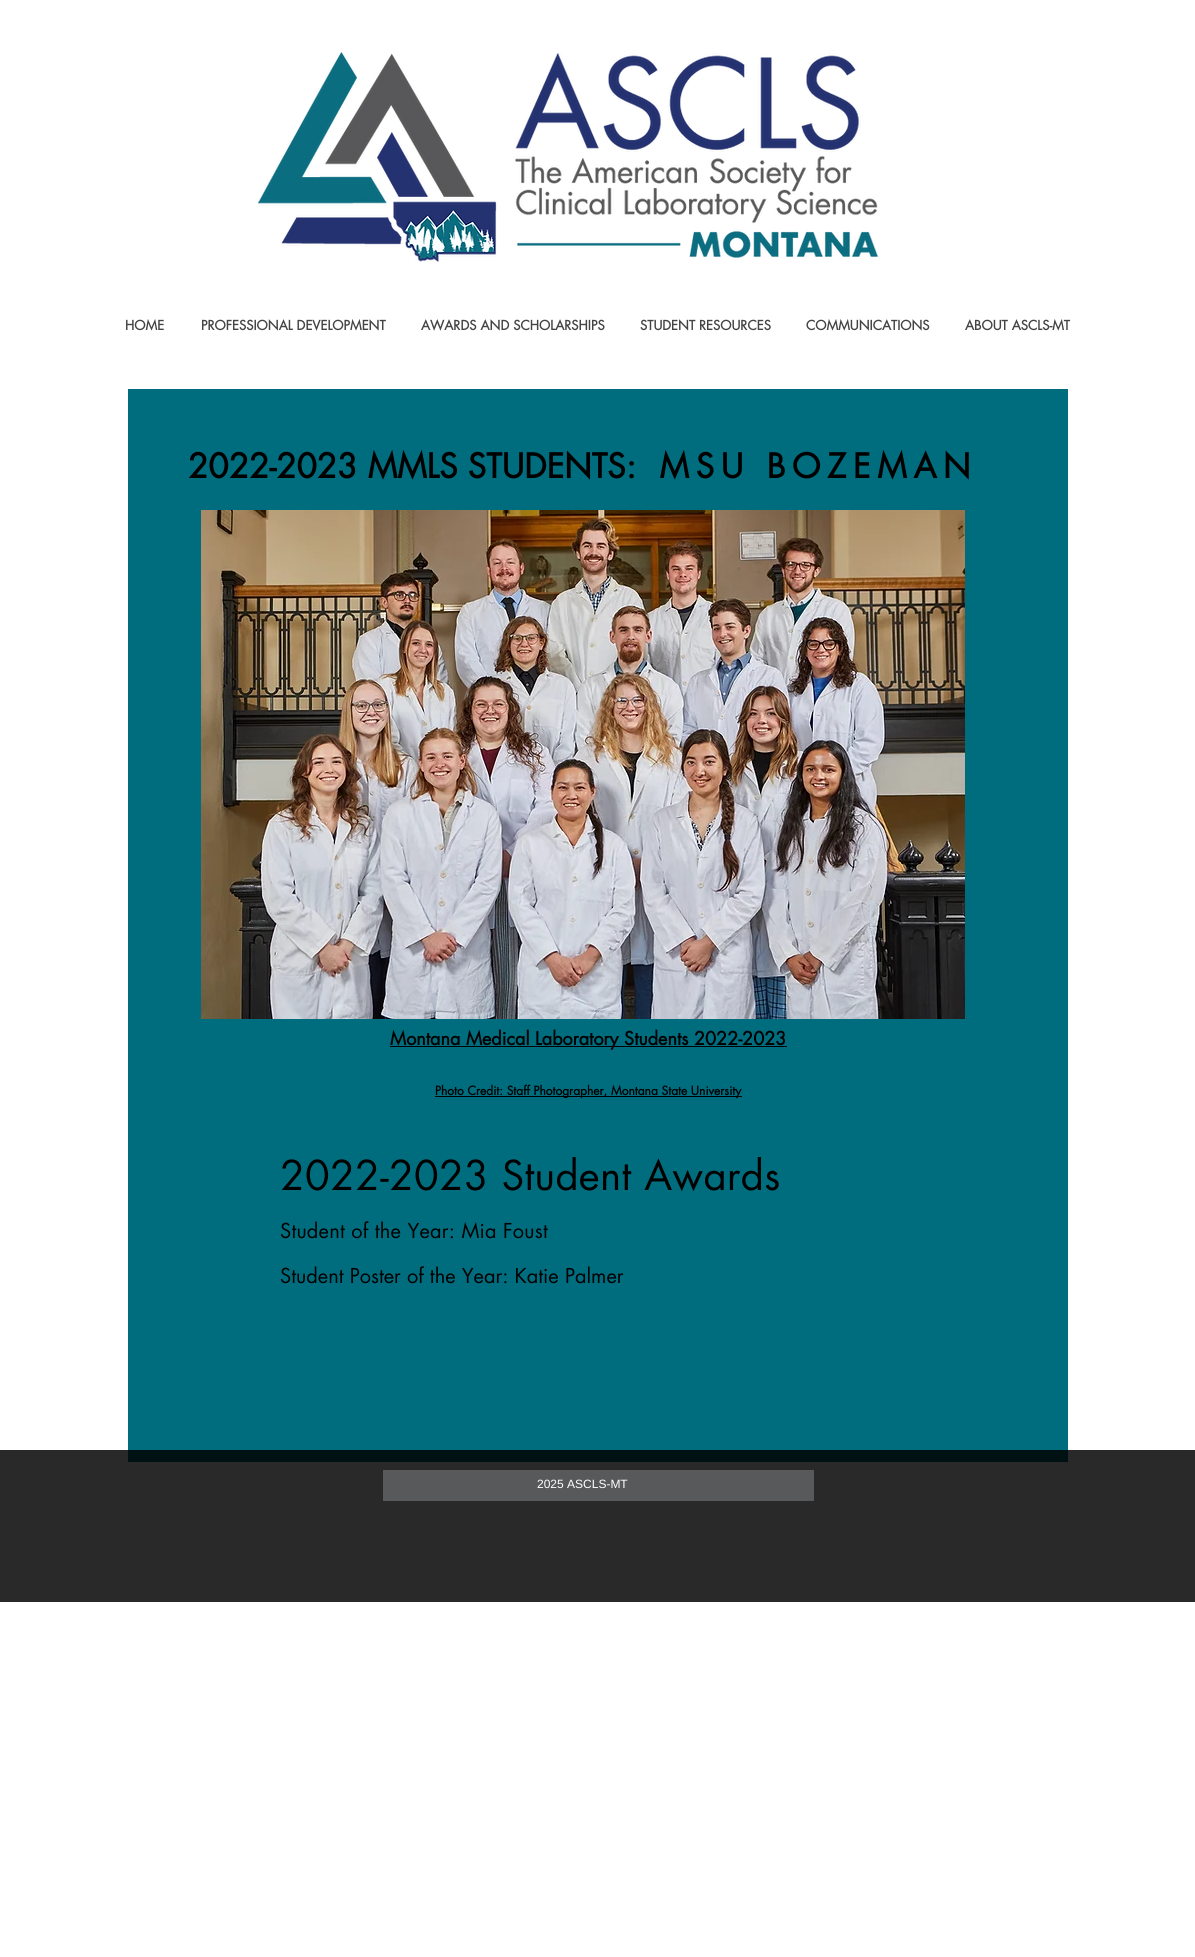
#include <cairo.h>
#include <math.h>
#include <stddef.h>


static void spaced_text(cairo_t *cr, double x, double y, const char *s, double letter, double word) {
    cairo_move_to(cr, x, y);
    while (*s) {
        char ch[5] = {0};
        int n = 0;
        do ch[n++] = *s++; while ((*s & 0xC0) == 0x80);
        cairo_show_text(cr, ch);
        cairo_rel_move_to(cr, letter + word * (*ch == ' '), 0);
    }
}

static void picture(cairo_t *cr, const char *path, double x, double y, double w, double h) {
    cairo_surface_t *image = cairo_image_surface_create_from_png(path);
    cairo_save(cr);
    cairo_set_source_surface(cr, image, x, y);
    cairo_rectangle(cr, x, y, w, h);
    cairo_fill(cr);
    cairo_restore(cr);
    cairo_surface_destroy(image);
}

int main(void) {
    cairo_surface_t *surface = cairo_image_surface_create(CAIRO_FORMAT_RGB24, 1195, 1957);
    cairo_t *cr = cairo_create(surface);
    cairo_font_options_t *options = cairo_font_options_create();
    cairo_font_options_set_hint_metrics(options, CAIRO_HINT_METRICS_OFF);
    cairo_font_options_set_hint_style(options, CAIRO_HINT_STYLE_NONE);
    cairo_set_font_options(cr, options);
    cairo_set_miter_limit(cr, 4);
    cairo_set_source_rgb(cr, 1, 1, 1);
    cairo_paint(cr);
    cairo_set_source_rgb(cr, 0.161, 0.161, 0.161);
    cairo_rectangle(cr, 0, 1450, 1195, 152);
    cairo_fill(cr);
    picture(cr, "img1.png", 257, 52, 622, 210);
    cairo_select_font_face(cr, "futura", CAIRO_FONT_SLANT_NORMAL, CAIRO_FONT_WEIGHT_BOLD);
    cairo_set_font_size(cr, 13);
    cairo_set_source_rgb(cr, 0.267, 0.267, 0.267);
    cairo_move_to(cr, 125, 330);
    cairo_show_text(cr, "HOME");
    cairo_move_to(cr, 201, 330);
    cairo_show_text(cr, "PROFESSIONAL DEVELOPMENT");
    cairo_move_to(cr, 421, 330);
    cairo_show_text(cr, "AWARDS AND SCHOLARSHIPS");
    cairo_move_to(cr, 640, 330);
    cairo_show_text(cr, "STUDENT RESOURCES");
    cairo_move_to(cr, 806, 330);
    cairo_show_text(cr, "COMMUNICATIONS");
    cairo_move_to(cr, 965, 330);
    cairo_show_text(cr, "ABOUT ASCLS-MT");
    cairo_set_source_rgb(cr, 0, 0.427, 0.498);
    cairo_rectangle(cr, 128, 389, 940, 1061);
    cairo_fill(cr);
    cairo_set_source_rgb(cr, 0, 0.067, 0.078);
    cairo_rectangle(cr, 128, 1450, 940, 12);
    cairo_fill(cr);
    cairo_set_font_size(cr, 33);
    cairo_set_source_rgb(cr, 0, 0, 0);
    cairo_move_to(cr, 188, 478);
    cairo_show_text(cr, "2022-2023 MMLS STUDENTS");
    spaced_text(cr, 626, 478, ": MSU BOZEMAN", 6.6, 0);
    picture(cr, "img2.png", 201, 510, 764, 509);
    cairo_new_path(cr);
    cairo_move_to(cr, 870.5, 901);
    cairo_line_to(cr, 870.5, 946);
    cairo_set_source_rgb(cr, 0.678, 0.914, 1);
    cairo_set_line_width(cr, 1);
    cairo_set_dash(cr, (double[]){1, 1}, 2, 0);
    cairo_stroke(cr);
    cairo_set_source_rgb(cr, 0, 0, 0);
    cairo_rectangle(cr, 390, 1046, 397, 1);
    cairo_fill(cr);
    cairo_set_font_size(cr, 18);
    cairo_move_to(cr, 390, 1045);
    cairo_show_text(cr, "Montana Medical Laboratory Students 2022-2023");
    cairo_rectangle(cr, 435, 1096, 307, 1);
    cairo_fill(cr);
    cairo_set_font_size(cr, 12);
    cairo_move_to(cr, 435, 1095);
    cairo_show_text(cr, "Photo Credit: Staff Photographer, Montana State University");
    cairo_select_font_face(cr, "futura", CAIRO_FONT_SLANT_NORMAL, CAIRO_FONT_WEIGHT_NORMAL);
    cairo_set_font_size(cr, 40);
    spaced_text(cr, 280, 1190, "2022-2023 Student Awards", 0.4, 0);
    cairo_set_font_size(cr, 20);
    spaced_text(cr, 280, 1238, "Student of the Year: Mia Foust", 0.2, 0);
    cairo_move_to(cr, 280, 1283);
    cairo_show_text(cr, "Student Poster of the Year: Katie Palmer");
    cairo_set_source_rgb(cr, 0.345, 0.349, 0.357);
    cairo_rectangle(cr, 383, 1470, 431, 31);
    cairo_fill(cr);
    cairo_select_font_face(cr, "Liberation Sans", CAIRO_FONT_SLANT_NORMAL, CAIRO_FONT_WEIGHT_NORMAL);
    cairo_set_font_size(cr, 12);
    cairo_set_source_rgb(cr, 1, 1, 1);
    cairo_move_to(cr, 537, 1488);
    cairo_show_text(cr, "2025 ASCLS-MT");
    cairo_surface_write_to_png(surface, "page.png");
    cairo_font_options_destroy(options);
    cairo_destroy(cr);
    cairo_surface_destroy(surface);
    return 0;
}
